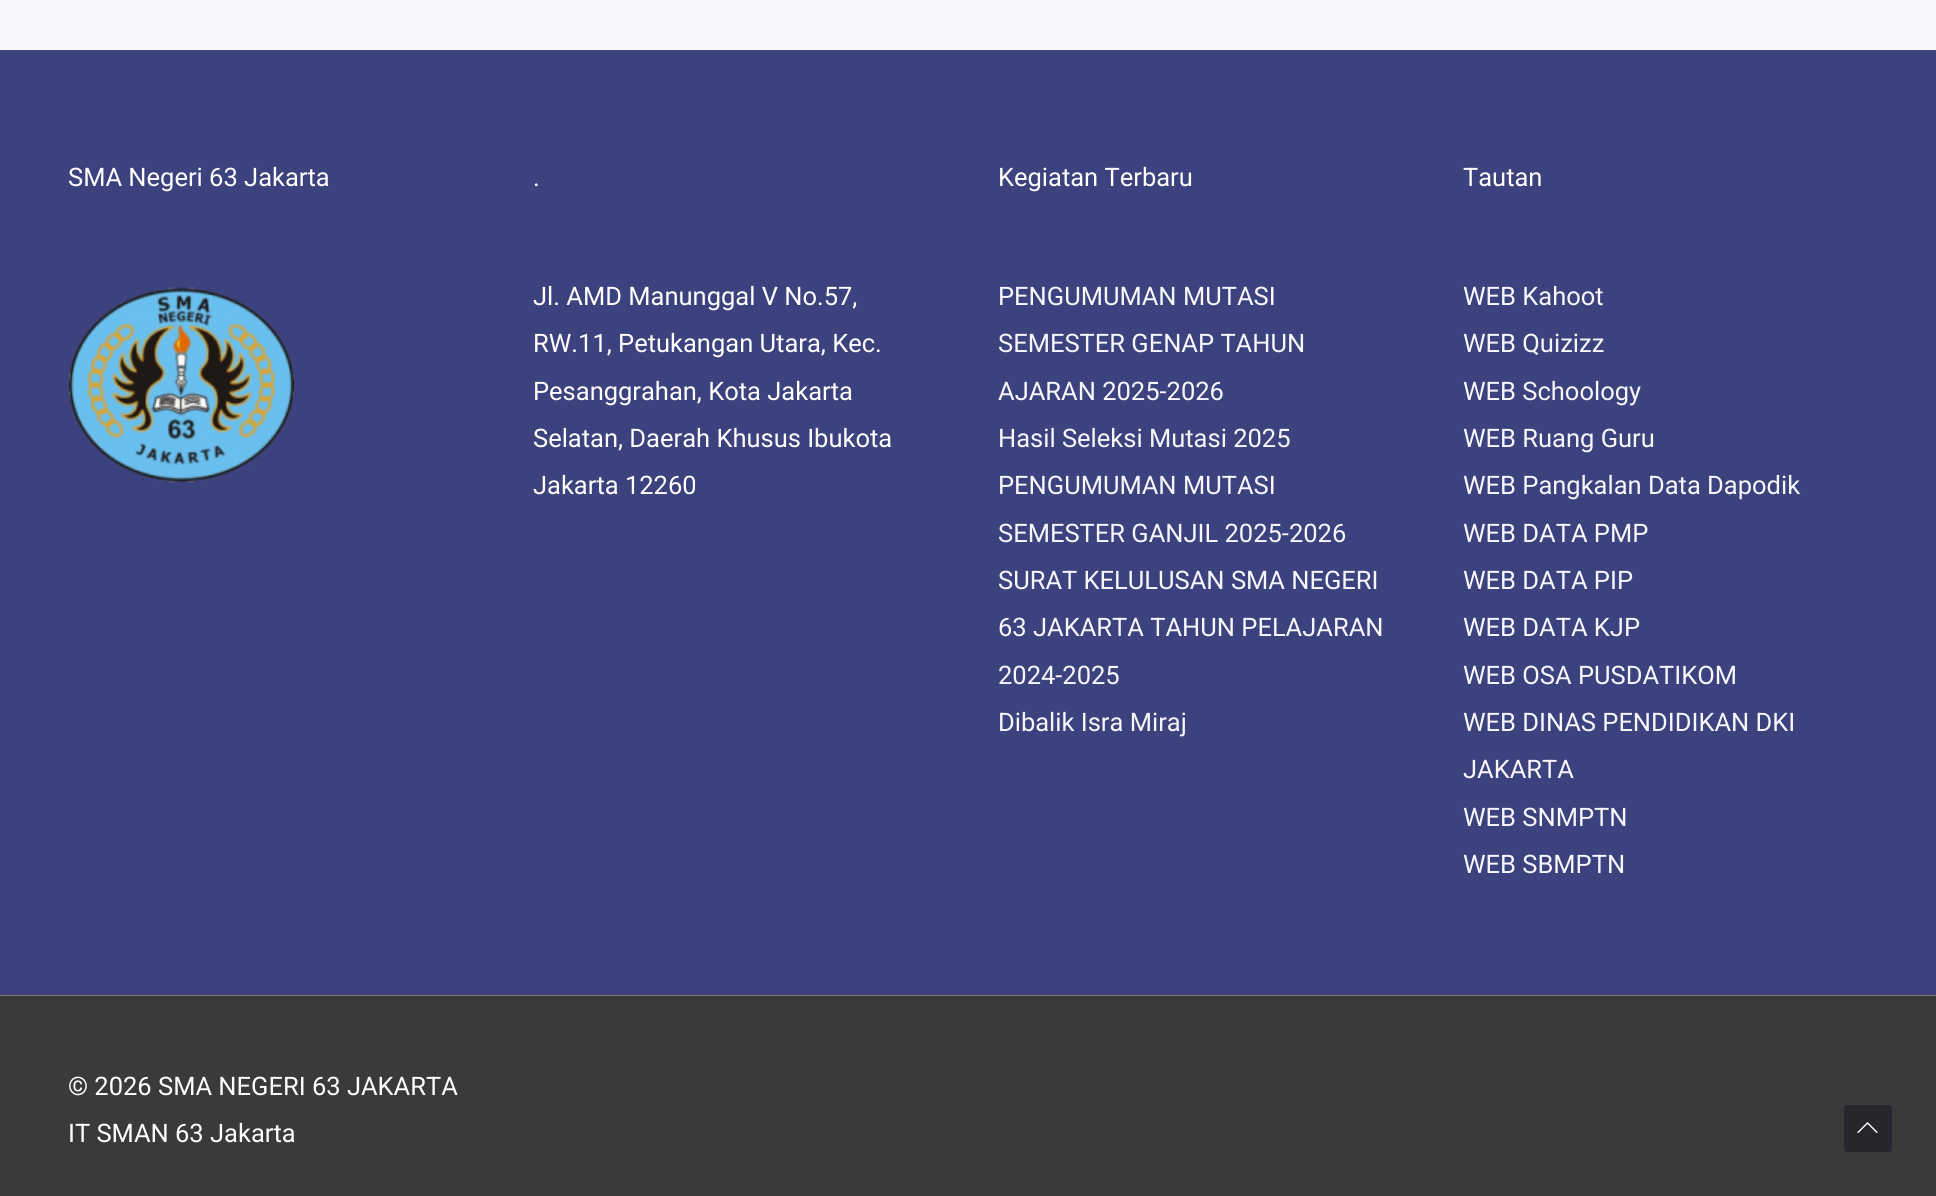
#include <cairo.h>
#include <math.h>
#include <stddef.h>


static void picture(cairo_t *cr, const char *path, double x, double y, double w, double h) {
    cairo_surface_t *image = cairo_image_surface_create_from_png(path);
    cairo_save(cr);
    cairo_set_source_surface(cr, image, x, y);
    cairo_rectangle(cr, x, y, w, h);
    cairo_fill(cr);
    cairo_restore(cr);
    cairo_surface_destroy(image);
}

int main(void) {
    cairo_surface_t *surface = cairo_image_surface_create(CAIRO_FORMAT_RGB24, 1936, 1196);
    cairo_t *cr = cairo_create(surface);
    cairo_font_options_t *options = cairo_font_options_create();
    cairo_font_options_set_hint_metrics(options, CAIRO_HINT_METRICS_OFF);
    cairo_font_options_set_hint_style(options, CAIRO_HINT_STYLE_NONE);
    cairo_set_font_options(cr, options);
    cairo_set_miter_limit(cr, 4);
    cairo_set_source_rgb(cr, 0.965, 0.969, 0.992);
    cairo_paint(cr);
    cairo_set_source_rgb(cr, 0.235, 0.259, 0.49);
    cairo_rectangle(cr, 0, 50, 1936, 945);
    cairo_fill(cr);
    cairo_select_font_face(cr, "Roboto", CAIRO_FONT_SLANT_NORMAL, CAIRO_FONT_WEIGHT_NORMAL);
    cairo_set_font_size(cr, 25.5);
    cairo_set_source_rgb(cr, 1, 1, 1);
    cairo_move_to(cr, 68, 186);
    cairo_show_text(cr, "SMA Negeri 63 Jakarta");
    picture(cr, "img1.png", 69, 287, 225, 196);
    cairo_move_to(cr, 533, 186);
    cairo_show_text(cr, ".");
    cairo_move_to(cr, 533, 305);
    cairo_show_text(cr, "Jl. AMD Manunggal V No.57,");
    cairo_move_to(cr, 533, 352);
    cairo_show_text(cr, "RW.11, Petukangan Utara, Kec.");
    cairo_move_to(cr, 533, 400);
    cairo_show_text(cr, "Pesanggrahan, Kota Jakarta");
    cairo_move_to(cr, 533, 447);
    cairo_show_text(cr, "Selatan, Daerah Khusus Ibukota");
    cairo_move_to(cr, 533, 494);
    cairo_show_text(cr, "Jakarta 12260");
    cairo_move_to(cr, 998, 186);
    cairo_show_text(cr, "Kegiatan Terbaru");
    cairo_set_source_rgb(cr, 0.965, 0.969, 0.992);
    cairo_move_to(cr, 998, 305);
    cairo_show_text(cr, "PENGUMUMAN MUTASI");
    cairo_move_to(cr, 998, 352);
    cairo_show_text(cr, "SEMESTER GENAP TAHUN");
    cairo_move_to(cr, 998, 400);
    cairo_show_text(cr, "AJARAN 2025-2026");
    cairo_move_to(cr, 998, 447);
    cairo_show_text(cr, "Hasil Seleksi Mutasi 2025");
    cairo_move_to(cr, 998, 494);
    cairo_show_text(cr, "PENGUMUMAN MUTASI");
    cairo_move_to(cr, 998, 542);
    cairo_show_text(cr, "SEMESTER GANJIL 2025-2026");
    cairo_move_to(cr, 998, 589);
    cairo_show_text(cr, "SURAT KELULUSAN SMA NEGERI");
    cairo_move_to(cr, 998, 636);
    cairo_show_text(cr, "63 JAKARTA TAHUN PELAJARAN");
    cairo_move_to(cr, 998, 684);
    cairo_show_text(cr, "2024-2025");
    cairo_move_to(cr, 998, 731);
    cairo_show_text(cr, "Dibalik Isra Miraj");
    cairo_set_source_rgb(cr, 1, 1, 1);
    cairo_move_to(cr, 1463, 186);
    cairo_show_text(cr, "Tautan");
    cairo_set_source_rgb(cr, 0.965, 0.969, 0.992);
    cairo_move_to(cr, 1463, 305);
    cairo_show_text(cr, "WEB Kahoot");
    cairo_move_to(cr, 1463, 352);
    cairo_show_text(cr, "WEB Quizizz");
    cairo_move_to(cr, 1463, 400);
    cairo_show_text(cr, "WEB Schoology");
    cairo_move_to(cr, 1463, 447);
    cairo_show_text(cr, "WEB Ruang Guru");
    cairo_move_to(cr, 1463, 494);
    cairo_show_text(cr, "WEB Pangkalan Data Dapodik");
    cairo_move_to(cr, 1463, 542);
    cairo_show_text(cr, "WEB DATA PMP");
    cairo_move_to(cr, 1463, 589);
    cairo_show_text(cr, "WEB DATA PIP");
    cairo_move_to(cr, 1463, 636);
    cairo_show_text(cr, "WEB DATA KJP");
    cairo_move_to(cr, 1463, 684);
    cairo_show_text(cr, "WEB OSA PUSDATIKOM");
    cairo_move_to(cr, 1463, 731);
    cairo_show_text(cr, "WEB DINAS PENDIDIKAN DKI");
    cairo_move_to(cr, 1463, 778);
    cairo_show_text(cr, "JAKARTA");
    cairo_move_to(cr, 1463, 826);
    cairo_show_text(cr, "WEB SNMPTN");
    cairo_move_to(cr, 1463, 873);
    cairo_show_text(cr, "WEB SBMPTN");
    cairo_set_source_rgb(cr, 0.478, 0.478, 0.478);
    cairo_rectangle(cr, 0, 995, 1936, 1);
    cairo_fill(cr);
    cairo_set_source_rgb(cr, 0.227, 0.227, 0.227);
    cairo_rectangle(cr, 0, 996, 1936, 200);
    cairo_fill(cr);
    cairo_set_source_rgb(cr, 1, 1, 1);
    cairo_move_to(cr, 68, 1095);
    cairo_show_text(cr, "© 2026 SMA NEGERI 63 JAKARTA");
    cairo_move_to(cr, 68, 1142);
    cairo_show_text(cr, "IT SMAN 63 Jakarta");
    cairo_set_source_rgb(cr, 0.149, 0.149, 0.173);
    cairo_new_path(cr);
    cairo_move_to(cr, 1888, 1152);
    cairo_line_to(cr, 1847, 1152);
    cairo_curve_to(cr, 1846, 1152, 1844, 1151, 1844, 1149);
    cairo_line_to(cr, 1844, 1108);
    cairo_curve_to(cr, 1844, 1106, 1846, 1105, 1847, 1105);
    cairo_line_to(cr, 1888, 1105);
    cairo_curve_to(cr, 1890, 1105, 1892, 1106, 1892, 1108);
    cairo_line_to(cr, 1892, 1149);
    cairo_curve_to(cr, 1892, 1151, 1890, 1152, 1888, 1152);
    cairo_close_path(cr);
    cairo_fill(cr);
    picture(cr, "img2.png", 1857, 1122, 21, 11);
    cairo_surface_write_to_png(surface, "page.png");
    cairo_font_options_destroy(options);
    cairo_destroy(cr);
    cairo_surface_destroy(surface);
    return 0;
}
